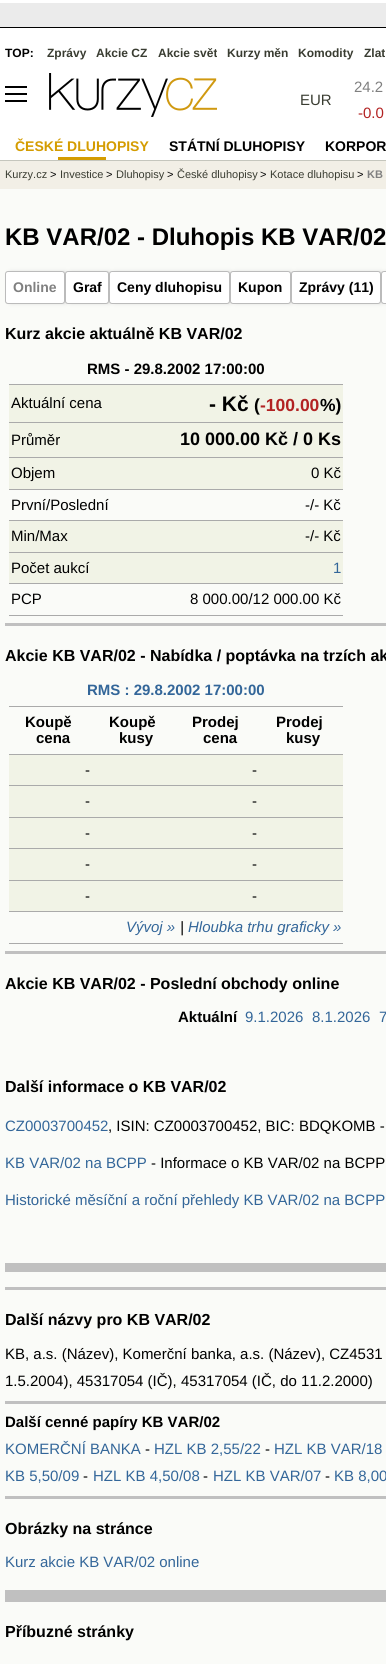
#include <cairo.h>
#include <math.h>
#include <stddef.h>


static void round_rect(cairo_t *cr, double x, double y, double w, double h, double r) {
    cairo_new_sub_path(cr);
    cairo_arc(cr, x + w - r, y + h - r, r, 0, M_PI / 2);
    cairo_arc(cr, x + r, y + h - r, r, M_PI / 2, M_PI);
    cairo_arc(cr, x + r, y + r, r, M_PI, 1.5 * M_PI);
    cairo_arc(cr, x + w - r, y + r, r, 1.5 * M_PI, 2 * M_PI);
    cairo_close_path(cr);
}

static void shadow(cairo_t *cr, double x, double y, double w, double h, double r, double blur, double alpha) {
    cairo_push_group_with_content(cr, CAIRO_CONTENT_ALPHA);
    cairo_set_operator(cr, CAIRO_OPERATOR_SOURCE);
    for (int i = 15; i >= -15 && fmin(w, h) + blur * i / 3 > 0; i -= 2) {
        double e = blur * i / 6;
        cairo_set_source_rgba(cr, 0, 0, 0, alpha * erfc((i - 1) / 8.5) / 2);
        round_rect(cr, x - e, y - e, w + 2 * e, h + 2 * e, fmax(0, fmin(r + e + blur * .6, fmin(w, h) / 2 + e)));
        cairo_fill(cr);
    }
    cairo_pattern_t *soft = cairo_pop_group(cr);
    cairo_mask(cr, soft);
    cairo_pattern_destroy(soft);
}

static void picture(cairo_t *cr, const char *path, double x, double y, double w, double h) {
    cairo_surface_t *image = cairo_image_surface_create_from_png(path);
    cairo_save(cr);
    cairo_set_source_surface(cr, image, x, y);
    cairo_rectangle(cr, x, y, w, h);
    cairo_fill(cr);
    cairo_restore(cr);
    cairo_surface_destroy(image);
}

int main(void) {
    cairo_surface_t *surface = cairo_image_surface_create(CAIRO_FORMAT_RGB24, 386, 1664);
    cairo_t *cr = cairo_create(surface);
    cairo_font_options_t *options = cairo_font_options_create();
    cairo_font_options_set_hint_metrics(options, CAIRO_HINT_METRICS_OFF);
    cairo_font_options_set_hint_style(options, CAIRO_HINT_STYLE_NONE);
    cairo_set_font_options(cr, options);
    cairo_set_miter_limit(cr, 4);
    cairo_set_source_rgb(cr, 1, 1, 1);
    cairo_paint(cr);
    cairo_set_source_rgb(cr, 0.98, 0.984, 0.969);
    cairo_rectangle(cr, 0, 189, 386, 1475);
    cairo_fill(cr);
    cairo_set_source_rgb(cr, 0.918, 0.918, 0.918);
    cairo_rectangle(cr, 0, 3, 386, 24);
    cairo_fill(cr);
    cairo_set_source_rgb(cr, 0, 0, 0);
    cairo_rectangle(cr, 0, 27, 386, 1);
    cairo_fill(cr);
    cairo_select_font_face(cr, "Liberation Sans", CAIRO_FONT_SLANT_NORMAL, CAIRO_FONT_WEIGHT_BOLD);
    cairo_set_font_size(cr, 12);
    cairo_move_to(cr, 5, 57);
    cairo_show_text(cr, "TOP:");
    cairo_set_source_rgb(cr, 0.224, 0.235, 0.192);
    cairo_move_to(cr, 47, 57);
    cairo_show_text(cr, "Zprávy");
    cairo_move_to(cr, 96, 57);
    cairo_show_text(cr, "Akcie CZ");
    cairo_move_to(cr, 158, 57);
    cairo_show_text(cr, "Akcie svět");
    cairo_move_to(cr, 227, 57);
    cairo_show_text(cr, "Kurzy měn");
    cairo_move_to(cr, 298, 57);
    cairo_show_text(cr, "Komodity");
    cairo_move_to(cr, 364, 57);
    cairo_show_text(cr, "Zlat");
    cairo_set_source_rgb(cr, 0, 0, 0);
    cairo_rectangle(cr, 5, 86, 22, 2);
    cairo_fill(cr);
    picture(cr, "img1.png", 49, 73, 168, 44);
    cairo_select_font_face(cr, "Liberation Sans", CAIRO_FONT_SLANT_NORMAL, CAIRO_FONT_WEIGHT_NORMAL);
    cairo_set_font_size(cr, 15);
    cairo_set_source_rgb(cr, 0.224, 0.235, 0.192);
    cairo_move_to(cr, 300, 105);
    cairo_show_text(cr, "EUR");
    cairo_set_source_rgb(cr, 0.502, 0.502, 0.502);
    cairo_move_to(cr, 354, 92);
    cairo_show_text(cr, "24.2");
    cairo_set_source_rgb(cr, 0.698, 0.133, 0.133);
    cairo_move_to(cr, 358, 118);
    cairo_show_text(cr, "-0.0");
    cairo_set_source_rgb(cr, 0, 0, 0);
    cairo_rectangle(cr, 5, 93, 22, 2);
    cairo_fill(cr);
    cairo_rectangle(cr, 5, 100, 22, 2);
    cairo_fill(cr);
    cairo_set_source_rgb(cr, 0.949, 0.937, 0.902);
    cairo_rectangle(cr, 0, 161, 386, 28);
    cairo_fill(cr);
    cairo_set_font_size(cr, 11);
    cairo_set_source_rgb(cr, 0.224, 0.235, 0.192);
    cairo_move_to(cr, 5, 178);
    cairo_show_text(cr, "Kurzy.cz");
    cairo_set_source_rgb(cr, 0, 0, 0);
    cairo_move_to(cr, 50, 178);
    cairo_show_text(cr, ">");
    cairo_set_source_rgb(cr, 0.224, 0.235, 0.192);
    cairo_move_to(cr, 60, 178);
    cairo_show_text(cr, "Investice");
    cairo_set_source_rgb(cr, 0, 0, 0);
    cairo_move_to(cr, 106, 178);
    cairo_show_text(cr, ">");
    cairo_set_source_rgb(cr, 0.224, 0.235, 0.192);
    cairo_move_to(cr, 116, 178);
    cairo_show_text(cr, "Dluhopisy");
    cairo_set_source_rgb(cr, 0, 0, 0);
    cairo_move_to(cr, 167, 178);
    cairo_show_text(cr, ">");
    cairo_set_source_rgb(cr, 0.224, 0.235, 0.192);
    cairo_move_to(cr, 177, 178);
    cairo_show_text(cr, "České dluhopisy");
    cairo_set_source_rgb(cr, 0, 0, 0);
    cairo_move_to(cr, 260, 178);
    cairo_show_text(cr, ">");
    cairo_set_source_rgb(cr, 0.224, 0.235, 0.192);
    cairo_move_to(cr, 270, 178);
    cairo_show_text(cr, "Kotace dluhopisu");
    cairo_set_source_rgb(cr, 0, 0, 0);
    cairo_move_to(cr, 357, 178);
    cairo_show_text(cr, ">");
    cairo_select_font_face(cr, "Liberation Sans", CAIRO_FONT_SLANT_NORMAL, CAIRO_FONT_WEIGHT_BOLD);
    cairo_set_source_rgb(cr, 0.502, 0.502, 0.502);
    cairo_move_to(cr, 367, 178);
    cairo_show_text(cr, "KB");
    cairo_set_font_size(cr, 24);
    cairo_set_source_rgb(cr, 0, 0, 0);
    cairo_move_to(cr, 5, 245);
    cairo_show_text(cr, "KB VAR/02 - Dluhopis KB VAR/02");
    cairo_set_source_rgb(cr, 0.733, 0.733, 0.733);
    shadow(cr, 10, 273, 56, 29, 1, 2.5, 1);
    cairo_set_source_rgb(cr, 1, 1, 1);
    round_rect(cr, 5.5, 271.5, 59, 32, 2.5);
    cairo_fill_preserve(cr);
    cairo_set_source_rgb(cr, 0.733, 0.733, 0.733);
    cairo_set_line_width(cr, 1);
    cairo_stroke(cr);
    cairo_set_font_size(cr, 14);
    cairo_set_source_rgb(cr, 0.502, 0.502, 0.502);
    cairo_move_to(cr, 13, 292);
    cairo_show_text(cr, "Online");
    cairo_set_source_rgb(cr, 0.733, 0.733, 0.733);
    shadow(cr, 70, 273, 40, 29, 1, 2.5, 1);
    cairo_set_source_rgb(cr, 1, 1, 1);
    round_rect(cr, 65.5, 271.5, 43, 32, 2.5);
    cairo_fill_preserve(cr);
    cairo_set_source_rgb(cr, 0.733, 0.733, 0.733);
    cairo_stroke(cr);
    cairo_set_source_rgb(cr, 0, 0, 0);
    cairo_move_to(cr, 73, 292);
    cairo_show_text(cr, "Graf");
    cairo_set_source_rgb(cr, 0.733, 0.733, 0.733);
    shadow(cr, 114, 273, 117, 29, 1, 2.5, 1);
    cairo_set_source_rgb(cr, 1, 1, 1);
    round_rect(cr, 109.5, 271.5, 120, 32, 2.5);
    cairo_fill_preserve(cr);
    cairo_set_source_rgb(cr, 0.733, 0.733, 0.733);
    cairo_stroke(cr);
    cairo_set_source_rgb(cr, 0, 0, 0);
    cairo_move_to(cr, 117, 292);
    cairo_show_text(cr, "Ceny dluhopisu");
    cairo_set_source_rgb(cr, 0.733, 0.733, 0.733);
    shadow(cr, 235, 273, 57, 29, 1, 2.5, 1);
    cairo_set_source_rgb(cr, 1, 1, 1);
    round_rect(cr, 230.5, 271.5, 60, 32, 2.5);
    cairo_fill_preserve(cr);
    cairo_set_source_rgb(cr, 0.733, 0.733, 0.733);
    cairo_stroke(cr);
    cairo_set_source_rgb(cr, 0, 0, 0);
    cairo_move_to(cr, 238, 292);
    cairo_show_text(cr, "Kupon");
    cairo_set_source_rgb(cr, 0.733, 0.733, 0.733);
    shadow(cr, 296, 273, 86, 29, 1, 2.5, 1);
    cairo_set_source_rgb(cr, 1, 1, 1);
    round_rect(cr, 291.5, 271.5, 89, 32, 2.5);
    cairo_fill_preserve(cr);
    cairo_set_source_rgb(cr, 0.733, 0.733, 0.733);
    cairo_stroke(cr);
    cairo_set_source_rgb(cr, 0, 0, 0);
    cairo_move_to(cr, 299, 292);
    cairo_show_text(cr, "Zprávy (11)");
    cairo_set_source_rgb(cr, 0.733, 0.733, 0.733);
    shadow(cr, 386, 273, 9, 29, 1, 2.5, 1);
    cairo_set_source_rgb(cr, 1, 1, 1);
    round_rect(cr, 381.5, 271.5, 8, 32, 2.5);
    cairo_fill_preserve(cr);
    cairo_set_source_rgb(cr, 0.733, 0.733, 0.733);
    cairo_stroke(cr);
    cairo_set_font_size(cr, 16);
    cairo_set_source_rgb(cr, 0, 0, 0);
    cairo_move_to(cr, 5, 339);
    cairo_show_text(cr, "Kurz akcie aktuálně KB VAR/02");
    cairo_set_source_rgb(cr, 0.667, 0.667, 0.667);
    cairo_rectangle(cr, 9, 384, 334, 1);
    cairo_fill(cr);
    cairo_set_font_size(cr, 15);
    cairo_set_source_rgb(cr, 0, 0, 0);
    cairo_move_to(cr, 87, 374);
    cairo_show_text(cr, "RMS - 29.8.2002 17:00:00");
    cairo_set_source_rgb(cr, 0.945, 0.953, 0.902);
    cairo_rectangle(cr, 9, 385, 334, 37);
    cairo_fill(cr);
    cairo_set_source_rgb(cr, 0.667, 0.667, 0.667);
    cairo_rectangle(cr, 9, 422, 334, 1);
    cairo_fill(cr);
    cairo_select_font_face(cr, "Liberation Sans", CAIRO_FONT_SLANT_NORMAL, CAIRO_FONT_WEIGHT_NORMAL);
    cairo_set_source_rgb(cr, 0, 0, 0);
    cairo_move_to(cr, 11, 408);
    cairo_show_text(cr, "Aktuální cena");
    cairo_select_font_face(cr, "Liberation Sans", CAIRO_FONT_SLANT_NORMAL, CAIRO_FONT_WEIGHT_BOLD);
    cairo_set_font_size(cr, 21);
    cairo_move_to(cr, 209, 411);
    cairo_show_text(cr, "- Kč");
    cairo_set_font_size(cr, 17.5);
    cairo_move_to(cr, 254, 411);
    cairo_show_text(cr, "(");
    cairo_set_source_rgb(cr, 0.698, 0.133, 0.133);
    cairo_move_to(cr, 260, 411);
    cairo_show_text(cr, "-100.00");
    cairo_set_source_rgb(cr, 0, 0, 0);
    cairo_move_to(cr, 320, 411);
    cairo_show_text(cr, "%)");
    cairo_set_source_rgb(cr, 0.945, 0.953, 0.902);
    cairo_rectangle(cr, 9, 423, 334, 34);
    cairo_fill(cr);
    cairo_set_source_rgb(cr, 0.667, 0.667, 0.667);
    cairo_rectangle(cr, 9, 457, 334, 1);
    cairo_fill(cr);
    cairo_select_font_face(cr, "Liberation Sans", CAIRO_FONT_SLANT_NORMAL, CAIRO_FONT_WEIGHT_NORMAL);
    cairo_set_font_size(cr, 15);
    cairo_set_source_rgb(cr, 0, 0, 0);
    cairo_move_to(cr, 11, 445);
    cairo_show_text(cr, "Průměr");
    cairo_select_font_face(cr, "Liberation Sans", CAIRO_FONT_SLANT_NORMAL, CAIRO_FONT_WEIGHT_BOLD);
    cairo_set_font_size(cr, 18);
    cairo_move_to(cr, 180, 445);
    cairo_show_text(cr, "10 000.00 Kč / 0 Ks");
    cairo_set_source_rgb(cr, 0.945, 0.953, 0.902);
    cairo_rectangle(cr, 9, 458, 334, 31);
    cairo_fill(cr);
    cairo_set_source_rgb(cr, 0.667, 0.667, 0.667);
    cairo_rectangle(cr, 9, 489, 334, 1);
    cairo_fill(cr);
    cairo_select_font_face(cr, "Liberation Sans", CAIRO_FONT_SLANT_NORMAL, CAIRO_FONT_WEIGHT_NORMAL);
    cairo_set_font_size(cr, 15);
    cairo_set_source_rgb(cr, 0, 0, 0);
    cairo_move_to(cr, 11, 478);
    cairo_show_text(cr, "Objem");
    cairo_move_to(cr, 311, 478);
    cairo_show_text(cr, "0 Kč");
    cairo_set_source_rgb(cr, 0.667, 0.667, 0.667);
    cairo_rectangle(cr, 9, 520, 334, 1);
    cairo_fill(cr);
    cairo_set_source_rgb(cr, 0, 0, 0);
    cairo_move_to(cr, 11, 510);
    cairo_show_text(cr, "První/Poslední");
    cairo_move_to(cr, 305, 510);
    cairo_show_text(cr, "-/- Kč");
    cairo_set_source_rgb(cr, 0.945, 0.953, 0.902);
    cairo_rectangle(cr, 9, 521, 334, 31);
    cairo_fill(cr);
    cairo_set_source_rgb(cr, 0.667, 0.667, 0.667);
    cairo_rectangle(cr, 9, 552, 334, 1);
    cairo_fill(cr);
    cairo_set_source_rgb(cr, 0, 0, 0);
    cairo_move_to(cr, 11, 541);
    cairo_show_text(cr, "Min/Max");
    cairo_move_to(cr, 305, 541);
    cairo_show_text(cr, "-/- Kč");
    cairo_set_source_rgb(cr, 0.945, 0.953, 0.902);
    cairo_rectangle(cr, 9, 553, 334, 30);
    cairo_fill(cr);
    cairo_set_source_rgb(cr, 0.667, 0.667, 0.667);
    cairo_rectangle(cr, 9, 583, 334, 1);
    cairo_fill(cr);
    cairo_set_source_rgb(cr, 0, 0, 0);
    cairo_move_to(cr, 11, 573);
    cairo_show_text(cr, "Počet aukcí");
    cairo_set_source_rgb(cr, 0.2, 0.4, 0.6);
    cairo_move_to(cr, 333, 573);
    cairo_show_text(cr, "1");
    cairo_set_source_rgb(cr, 0.667, 0.667, 0.667);
    cairo_rectangle(cr, 9, 615, 334, 1);
    cairo_fill(cr);
    cairo_set_source_rgb(cr, 0, 0, 0);
    cairo_move_to(cr, 11, 604);
    cairo_show_text(cr, "PCP");
    cairo_move_to(cr, 190, 604);
    cairo_show_text(cr, "8 000.00/12 000.00 Kč");
    cairo_set_source_rgb(cr, 0.753, 0.753, 0.753);
    cairo_rectangle(cr, 5, 623, 381, 3);
    cairo_fill(cr);
    cairo_select_font_face(cr, "Liberation Sans", CAIRO_FONT_SLANT_NORMAL, CAIRO_FONT_WEIGHT_BOLD);
    cairo_set_font_size(cr, 16);
    cairo_set_source_rgb(cr, 0, 0, 0);
    cairo_move_to(cr, 5, 661);
    cairo_show_text(cr, "Akcie KB VAR/02 - Nabídka / poptávka na trzích ak");
    cairo_set_source_rgb(cr, 0.667, 0.667, 0.667);
    cairo_rectangle(cr, 9, 706, 334, 1);
    cairo_fill(cr);
    cairo_set_font_size(cr, 15);
    cairo_set_source_rgb(cr, 0.2, 0.4, 0.6);
    cairo_move_to(cr, 87, 695);
    cairo_show_text(cr, "RMS : 29.8.2002 17:00:00");
    cairo_set_source_rgb(cr, 0.667, 0.667, 0.667);
    cairo_rectangle(cr, 9, 754, 334, 1);
    cairo_fill(cr);
    cairo_set_source_rgb(cr, 0, 0, 0);
    cairo_move_to(cr, 25, 727);
    cairo_show_text(cr, "Koupě");
    cairo_move_to(cr, 36, 743);
    cairo_show_text(cr, "cena");
    cairo_move_to(cr, 109, 727);
    cairo_show_text(cr, "Koupě");
    cairo_move_to(cr, 119, 743);
    cairo_show_text(cr, "kusy");
    cairo_move_to(cr, 192, 727);
    cairo_show_text(cr, "Prodej");
    cairo_move_to(cr, 203, 743);
    cairo_show_text(cr, "cena");
    cairo_move_to(cr, 276, 727);
    cairo_show_text(cr, "Prodej");
    cairo_move_to(cr, 286, 743);
    cairo_show_text(cr, "kusy");
    cairo_set_source_rgb(cr, 0.945, 0.953, 0.902);
    cairo_rectangle(cr, 9, 755, 334, 30);
    cairo_fill(cr);
    cairo_set_source_rgb(cr, 0.667, 0.667, 0.667);
    cairo_rectangle(cr, 9, 785, 334, 1);
    cairo_fill(cr);
    cairo_select_font_face(cr, "Liberation Sans", CAIRO_FONT_SLANT_NORMAL, CAIRO_FONT_WEIGHT_NORMAL);
    cairo_set_source_rgb(cr, 0, 0, 0);
    cairo_move_to(cr, 85, 775);
    cairo_show_text(cr, "-");
    cairo_move_to(cr, 252, 775);
    cairo_show_text(cr, "-");
    cairo_set_source_rgb(cr, 0.945, 0.953, 0.902);
    cairo_rectangle(cr, 9, 786, 334, 31);
    cairo_fill(cr);
    cairo_set_source_rgb(cr, 0.667, 0.667, 0.667);
    cairo_rectangle(cr, 9, 817, 334, 1);
    cairo_fill(cr);
    cairo_set_source_rgb(cr, 0, 0, 0);
    cairo_move_to(cr, 85, 806);
    cairo_show_text(cr, "-");
    cairo_move_to(cr, 252, 806);
    cairo_show_text(cr, "-");
    cairo_set_source_rgb(cr, 0.945, 0.953, 0.902);
    cairo_rectangle(cr, 9, 818, 334, 30);
    cairo_fill(cr);
    cairo_set_source_rgb(cr, 0.667, 0.667, 0.667);
    cairo_rectangle(cr, 9, 848, 334, 1);
    cairo_fill(cr);
    cairo_set_source_rgb(cr, 0, 0, 0);
    cairo_move_to(cr, 85, 838);
    cairo_show_text(cr, "-");
    cairo_move_to(cr, 252, 838);
    cairo_show_text(cr, "-");
    cairo_set_source_rgb(cr, 0.945, 0.953, 0.902);
    cairo_rectangle(cr, 9, 849, 334, 31);
    cairo_fill(cr);
    cairo_set_source_rgb(cr, 0.667, 0.667, 0.667);
    cairo_rectangle(cr, 9, 880, 334, 1);
    cairo_fill(cr);
    cairo_set_source_rgb(cr, 0, 0, 0);
    cairo_move_to(cr, 85, 869);
    cairo_show_text(cr, "-");
    cairo_move_to(cr, 252, 869);
    cairo_show_text(cr, "-");
    cairo_set_source_rgb(cr, 0.945, 0.953, 0.902);
    cairo_rectangle(cr, 9, 881, 334, 30);
    cairo_fill(cr);
    cairo_set_source_rgb(cr, 0.667, 0.667, 0.667);
    cairo_rectangle(cr, 9, 911, 334, 1);
    cairo_fill(cr);
    cairo_set_source_rgb(cr, 0, 0, 0);
    cairo_move_to(cr, 85, 901);
    cairo_show_text(cr, "-");
    cairo_move_to(cr, 252, 901);
    cairo_show_text(cr, "-");
    cairo_set_source_rgb(cr, 0.667, 0.667, 0.667);
    cairo_rectangle(cr, 9, 943, 334, 1);
    cairo_fill(cr);
    cairo_select_font_face(cr, "Liberation Sans", CAIRO_FONT_SLANT_ITALIC, CAIRO_FONT_WEIGHT_NORMAL);
    cairo_set_source_rgb(cr, 0.2, 0.4, 0.6);
    cairo_move_to(cr, 126, 932);
    cairo_show_text(cr, "Vývoj »");
    cairo_set_source_rgb(cr, 0, 0, 0);
    cairo_move_to(cr, 180, 932);
    cairo_show_text(cr, "|");
    cairo_set_source_rgb(cr, 0.2, 0.4, 0.6);
    cairo_move_to(cr, 188, 932);
    cairo_show_text(cr, "Hloubka trhu graficky »");
    cairo_set_source_rgb(cr, 0.753, 0.753, 0.753);
    cairo_rectangle(cr, 5, 951, 381, 3);
    cairo_fill(cr);
    cairo_select_font_face(cr, "Liberation Sans", CAIRO_FONT_SLANT_NORMAL, CAIRO_FONT_WEIGHT_BOLD);
    cairo_set_font_size(cr, 16);
    cairo_set_source_rgb(cr, 0, 0, 0);
    cairo_move_to(cr, 5, 989);
    cairo_show_text(cr, "Akcie KB VAR/02 - Poslední obchody online");
    cairo_set_font_size(cr, 15);
    cairo_move_to(cr, 178, 1022);
    cairo_show_text(cr, "Aktuální");
    cairo_select_font_face(cr, "Liberation Sans", CAIRO_FONT_SLANT_NORMAL, CAIRO_FONT_WEIGHT_NORMAL);
    cairo_set_source_rgb(cr, 0.2, 0.4, 0.6);
    cairo_move_to(cr, 245, 1022);
    cairo_show_text(cr, "9.1.2026");
    cairo_move_to(cr, 312, 1022);
    cairo_show_text(cr, "8.1.2026");
    cairo_move_to(cr, 379, 1022);
    cairo_show_text(cr, "7");
    cairo_select_font_face(cr, "Liberation Sans", CAIRO_FONT_SLANT_NORMAL, CAIRO_FONT_WEIGHT_BOLD);
    cairo_set_font_size(cr, 16);
    cairo_set_source_rgb(cr, 0, 0, 0);
    cairo_move_to(cr, 5, 1092);
    cairo_show_text(cr, "Další informace o KB VAR/02");
    cairo_select_font_face(cr, "Liberation Sans", CAIRO_FONT_SLANT_NORMAL, CAIRO_FONT_WEIGHT_NORMAL);
    cairo_set_font_size(cr, 15);
    cairo_set_source_rgb(cr, 0.2, 0.4, 0.6);
    cairo_move_to(cr, 5, 1131);
    cairo_show_text(cr, "CZ0003700452");
    cairo_set_source_rgb(cr, 0, 0, 0);
    cairo_move_to(cr, 108, 1131);
    cairo_show_text(cr, ", ISIN: CZ0003700452, BIC: BDQKOMB -");
    cairo_set_source_rgb(cr, 0.2, 0.4, 0.6);
    cairo_move_to(cr, 5, 1168);
    cairo_show_text(cr, "KB VAR/02 na BCPP");
    cairo_set_source_rgb(cr, 0, 0, 0);
    cairo_move_to(cr, 151, 1168);
    cairo_show_text(cr, "- Informace o KB VAR/02 na BCPP");
    cairo_set_source_rgb(cr, 0.2, 0.4, 0.6);
    cairo_move_to(cr, 5, 1205);
    cairo_show_text(cr, "Historické měsíční a roční přehledy KB VAR/02 na BCPP");
    cairo_set_source_rgb(cr, 0.753, 0.753, 0.753);
    cairo_rectangle(cr, 5, 1263, 381, 9);
    cairo_fill(cr);
    cairo_rectangle(cr, 5, 1287, 381, 3);
    cairo_fill(cr);
    cairo_select_font_face(cr, "Liberation Sans", CAIRO_FONT_SLANT_NORMAL, CAIRO_FONT_WEIGHT_BOLD);
    cairo_set_font_size(cr, 16);
    cairo_set_source_rgb(cr, 0, 0, 0);
    cairo_move_to(cr, 5, 1325);
    cairo_show_text(cr, "Další názvy pro KB VAR/02");
    cairo_select_font_face(cr, "Liberation Sans", CAIRO_FONT_SLANT_NORMAL, CAIRO_FONT_WEIGHT_NORMAL);
    cairo_set_font_size(cr, 15);
    cairo_move_to(cr, 5, 1359);
    cairo_show_text(cr, "KB, a.s. (Název), Komerční banka, a.s. (Název), CZ4531");
    cairo_move_to(cr, 5, 1386);
    cairo_show_text(cr, "1.5.2004), 45317054 (IČ), 45317054 (IČ, do 11.2.2000)");
    cairo_set_source_rgb(cr, 0.753, 0.753, 0.753);
    cairo_rectangle(cr, 5, 1401, 381, 3);
    cairo_fill(cr);
    cairo_select_font_face(cr, "Liberation Sans", CAIRO_FONT_SLANT_NORMAL, CAIRO_FONT_WEIGHT_BOLD);
    cairo_set_source_rgb(cr, 0, 0, 0);
    cairo_move_to(cr, 5, 1427);
    cairo_show_text(cr, "Další cenné papíry KB VAR/02");
    cairo_select_font_face(cr, "Liberation Sans", CAIRO_FONT_SLANT_NORMAL, CAIRO_FONT_WEIGHT_NORMAL);
    cairo_set_source_rgb(cr, 0.2, 0.4, 0.6);
    cairo_move_to(cr, 5, 1454);
    cairo_show_text(cr, "KOMERČNÍ BANKA");
    cairo_set_source_rgb(cr, 0, 0, 0);
    cairo_move_to(cr, 145, 1454);
    cairo_show_text(cr, "-");
    cairo_set_source_rgb(cr, 0.2, 0.4, 0.6);
    cairo_move_to(cr, 154, 1454);
    cairo_show_text(cr, "HZL KB 2,55/22");
    cairo_set_source_rgb(cr, 0, 0, 0);
    cairo_move_to(cr, 265, 1454);
    cairo_show_text(cr, "-");
    cairo_set_source_rgb(cr, 0.2, 0.4, 0.6);
    cairo_move_to(cr, 274, 1454);
    cairo_show_text(cr, "HZL KB VAR/18");
    cairo_move_to(cr, 5, 1481);
    cairo_show_text(cr, "KB 5,50/09");
    cairo_set_source_rgb(cr, 0, 0, 0);
    cairo_move_to(cr, 83, 1481);
    cairo_show_text(cr, "-");
    cairo_set_source_rgb(cr, 0.2, 0.4, 0.6);
    cairo_move_to(cr, 93, 1481);
    cairo_show_text(cr, "HZL KB 4,50/08");
    cairo_set_source_rgb(cr, 0, 0, 0);
    cairo_move_to(cr, 203, 1481);
    cairo_show_text(cr, "-");
    cairo_set_source_rgb(cr, 0.2, 0.4, 0.6);
    cairo_move_to(cr, 213, 1481);
    cairo_show_text(cr, "HZL KB VAR/07");
    cairo_set_source_rgb(cr, 0, 0, 0);
    cairo_move_to(cr, 325, 1481);
    cairo_show_text(cr, "-");
    cairo_set_source_rgb(cr, 0.2, 0.4, 0.6);
    cairo_move_to(cr, 334, 1481);
    cairo_show_text(cr, "KB 8,00");
    cairo_set_source_rgb(cr, 0.753, 0.753, 0.753);
    cairo_rectangle(cr, 5, 1496, 381, 3);
    cairo_fill(cr);
    cairo_select_font_face(cr, "Liberation Sans", CAIRO_FONT_SLANT_NORMAL, CAIRO_FONT_WEIGHT_BOLD);
    cairo_set_font_size(cr, 16);
    cairo_set_source_rgb(cr, 0, 0, 0);
    cairo_move_to(cr, 5, 1534);
    cairo_show_text(cr, "Obrázky na stránce");
    cairo_select_font_face(cr, "Liberation Sans", CAIRO_FONT_SLANT_NORMAL, CAIRO_FONT_WEIGHT_NORMAL);
    cairo_set_font_size(cr, 15);
    cairo_set_source_rgb(cr, 0.2, 0.4, 0.6);
    cairo_move_to(cr, 5, 1567);
    cairo_show_text(cr, "Kurz akcie KB VAR/02 online");
    cairo_set_source_rgb(cr, 0.753, 0.753, 0.753);
    cairo_rectangle(cr, 5, 1590, 381, 12);
    cairo_fill(cr);
    cairo_select_font_face(cr, "Liberation Sans", CAIRO_FONT_SLANT_NORMAL, CAIRO_FONT_WEIGHT_BOLD);
    cairo_set_font_size(cr, 16);
    cairo_set_source_rgb(cr, 0, 0, 0);
    cairo_move_to(cr, 5, 1637);
    cairo_show_text(cr, "Příbuzné stránky");
    cairo_set_source_rgb(cr, 0.773, 0.776, 0.741);
    cairo_rectangle(cr, 0, 160, 386, 1);
    cairo_fill(cr);
    cairo_set_source_rgb(cr, 0.831, 0.612, 0.004);
    cairo_rectangle(cr, 58, 157, 48, 3);
    cairo_fill(cr);
    cairo_set_font_size(cr, 14);
    cairo_move_to(cr, 15, 151);
    cairo_show_text(cr, "ČESKÉ DLUHOPISY");
    cairo_set_source_rgb(cr, 0, 0, 0);
    cairo_move_to(cr, 169, 151);
    cairo_show_text(cr, "STÁTNÍ DLUHOPISY");
    cairo_move_to(cr, 325, 151);
    cairo_show_text(cr, "KORPOR");
    cairo_surface_write_to_png(surface, "page.png");
    cairo_font_options_destroy(options);
    cairo_destroy(cr);
    cairo_surface_destroy(surface);
    return 0;
}
